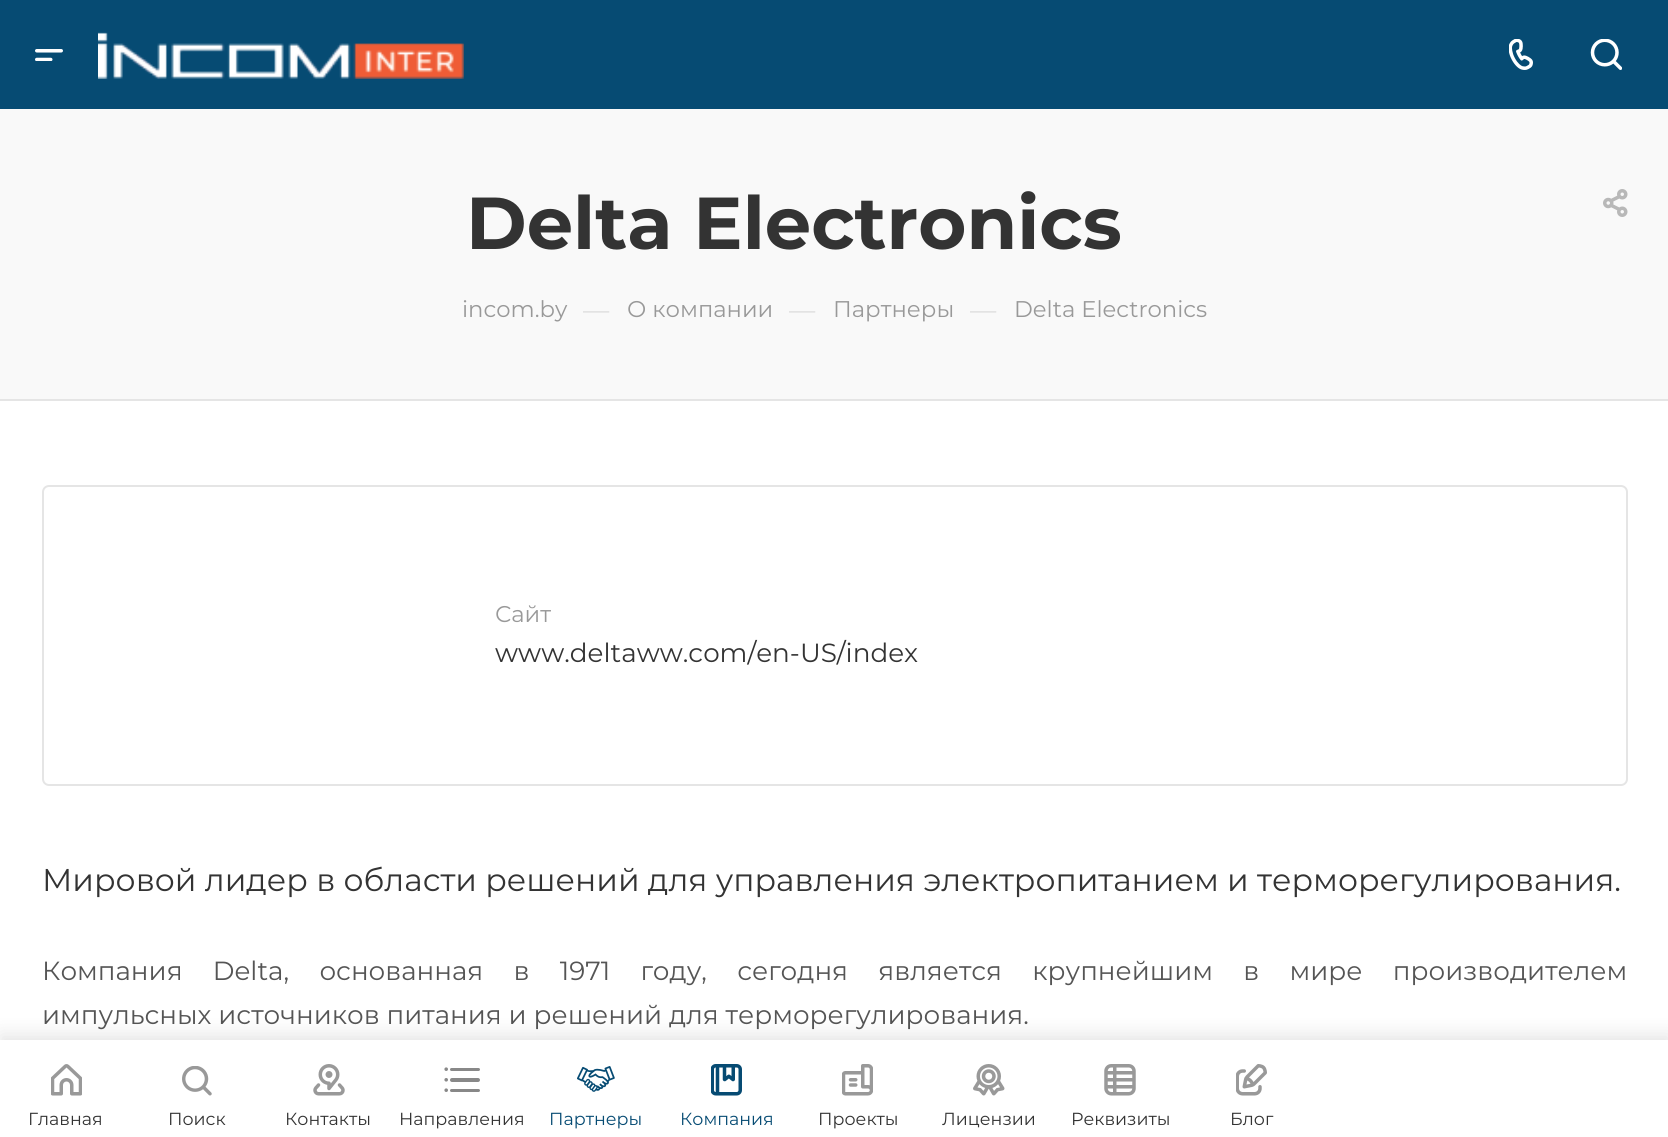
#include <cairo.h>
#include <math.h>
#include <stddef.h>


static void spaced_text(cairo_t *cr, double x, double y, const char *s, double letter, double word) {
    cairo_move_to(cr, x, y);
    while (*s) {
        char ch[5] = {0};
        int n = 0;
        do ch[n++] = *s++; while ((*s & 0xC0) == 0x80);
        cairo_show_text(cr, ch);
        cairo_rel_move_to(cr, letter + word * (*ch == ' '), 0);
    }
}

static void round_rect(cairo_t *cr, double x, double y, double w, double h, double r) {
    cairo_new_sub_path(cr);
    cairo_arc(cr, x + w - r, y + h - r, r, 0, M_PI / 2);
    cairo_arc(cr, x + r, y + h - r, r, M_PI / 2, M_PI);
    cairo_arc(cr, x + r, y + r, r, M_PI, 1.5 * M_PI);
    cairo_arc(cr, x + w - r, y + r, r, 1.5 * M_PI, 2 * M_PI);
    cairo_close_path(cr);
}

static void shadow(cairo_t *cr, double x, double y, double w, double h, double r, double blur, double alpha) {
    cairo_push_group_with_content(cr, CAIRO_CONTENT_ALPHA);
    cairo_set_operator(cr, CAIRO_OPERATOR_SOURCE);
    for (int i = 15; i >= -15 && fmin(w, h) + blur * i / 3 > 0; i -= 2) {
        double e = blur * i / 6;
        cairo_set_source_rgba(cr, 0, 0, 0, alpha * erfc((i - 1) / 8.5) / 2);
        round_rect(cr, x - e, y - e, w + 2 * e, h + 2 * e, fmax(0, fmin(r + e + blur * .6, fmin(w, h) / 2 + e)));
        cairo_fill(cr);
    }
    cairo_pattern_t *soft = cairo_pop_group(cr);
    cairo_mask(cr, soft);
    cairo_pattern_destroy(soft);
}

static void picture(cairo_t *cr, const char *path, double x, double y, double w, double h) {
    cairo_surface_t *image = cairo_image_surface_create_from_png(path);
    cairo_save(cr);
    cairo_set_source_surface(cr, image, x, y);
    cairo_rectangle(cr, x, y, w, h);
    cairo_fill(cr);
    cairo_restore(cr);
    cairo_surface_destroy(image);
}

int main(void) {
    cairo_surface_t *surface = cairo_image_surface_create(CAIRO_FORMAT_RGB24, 1668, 1137);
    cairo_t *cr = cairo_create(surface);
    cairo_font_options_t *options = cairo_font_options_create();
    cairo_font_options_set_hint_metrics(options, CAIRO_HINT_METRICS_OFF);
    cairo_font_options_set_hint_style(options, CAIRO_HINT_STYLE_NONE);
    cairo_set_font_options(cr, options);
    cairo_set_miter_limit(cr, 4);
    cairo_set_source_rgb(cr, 1, 1, 1);
    cairo_paint(cr);
    cairo_set_source_rgb(cr, 0.024, 0.294, 0.451);
    cairo_rectangle(cr, 0, 0, 1668, 109);
    cairo_fill(cr);
    picture(cr, "img1.png", 35, 49, 28, 12);
    picture(cr, "img2.png", 98, 32, 366, 47);
    picture(cr, "img3.png", 1509, 39, 24, 31);
    picture(cr, "img4.png", 1590, 39, 32, 31);
    cairo_set_source_rgb(cr, 0.973, 0.973, 0.973);
    cairo_rectangle(cr, 0, 109, 1668, 290);
    cairo_fill(cr);
    cairo_set_source_rgb(cr, 0.898, 0.898, 0.898);
    cairo_rectangle(cr, 0, 399, 1668, 2);
    cairo_fill(cr);
    cairo_select_font_face(cr, "Montserrat", CAIRO_FONT_SLANT_NORMAL, CAIRO_FONT_WEIGHT_BOLD);
    cairo_set_font_size(cr, 73.5);
    cairo_set_source_rgb(cr, 0.2, 0.2, 0.2);
    cairo_move_to(cr, 466, 249);
    cairo_show_text(cr, "Delta Electronics");
    picture(cr, "img5.png", 1603, 189, 25, 28);
    cairo_select_font_face(cr, "Montserrat", CAIRO_FONT_SLANT_NORMAL, CAIRO_FONT_WEIGHT_NORMAL);
    cairo_set_font_size(cr, 22.75);
    cairo_set_source_rgb(cr, 0.6, 0.6, 0.6);
    cairo_move_to(cr, 462, 317);
    cairo_show_text(cr, "incom.by");
    cairo_set_font_size(cr, 26.25);
    cairo_set_source_rgb(cr, 0.867, 0.867, 0.867);
    cairo_move_to(cr, 583, 319);
    cairo_show_text(cr, "—");
    cairo_set_font_size(cr, 22.75);
    cairo_set_source_rgb(cr, 0.6, 0.6, 0.6);
    cairo_move_to(cr, 627, 317);
    cairo_show_text(cr, "О компании");
    cairo_set_font_size(cr, 26.25);
    cairo_set_source_rgb(cr, 0.867, 0.867, 0.867);
    cairo_move_to(cr, 789, 319);
    cairo_show_text(cr, "—");
    cairo_set_font_size(cr, 22.75);
    cairo_set_source_rgb(cr, 0.6, 0.6, 0.6);
    cairo_move_to(cr, 833, 317);
    cairo_show_text(cr, "Партнеры");
    cairo_set_font_size(cr, 26.25);
    cairo_set_source_rgb(cr, 0.867, 0.867, 0.867);
    cairo_move_to(cr, 970, 319);
    cairo_show_text(cr, "—");
    cairo_set_font_size(cr, 22.75);
    cairo_set_source_rgb(cr, 0.6, 0.6, 0.6);
    cairo_move_to(cr, 1014, 317);
    cairo_show_text(cr, "Delta Electronics");
    round_rect(cr, 43, 486, 1584, 299, 6);
    cairo_set_source_rgb(cr, 0.898, 0.898, 0.898);
    cairo_stroke(cr);
    cairo_set_source_rgb(cr, 0.6, 0.6, 0.6);
    cairo_move_to(cr, 495, 622);
    cairo_show_text(cr, "Сайт");
    cairo_set_font_size(cr, 26.25);
    cairo_set_source_rgb(cr, 0.2, 0.2, 0.2);
    cairo_move_to(cr, 495, 662);
    cairo_show_text(cr, "www.deltaww.com/en-US/index");
    cairo_set_font_size(cr, 31.5);
    cairo_move_to(cr, 42, 891);
    cairo_show_text(cr, "Мировой лидер в области решений для управления электропитанием и терморегулирования.");
    cairo_set_font_size(cr, 26.25);
    cairo_set_source_rgb(cr, 0.333, 0.333, 0.333);
    spaced_text(cr, 42, 980, "Компания Delta, основанная в 1971 году, сегодня является крупнейшим в мире производителем", 0, 23.4);
    cairo_move_to(cr, 42, 1024);
    cairo_show_text(cr, "импульсных источников питания и решений для терморегулирования.");
    cairo_set_source_rgb(cr, 0, 0, 0);
    shadow(cr, 0, 1034, 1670, 98, 0, 9, 0.1);
    cairo_set_source_rgb(cr, 1, 1, 1);
    cairo_rectangle(cr, 0, 1040, 1668, 97);
    cairo_fill(cr);
    picture(cr, "img6.png", 51, 1064, 31, 32);
    cairo_set_font_size(cr, 17.5);
    cairo_set_source_rgb(cr, 0.2, 0.2, 0.2);
    cairo_move_to(cr, 28, 1125);
    cairo_show_text(cr, "Главная");
    picture(cr, "img7.png", 182, 1066, 30, 30);
    cairo_move_to(cr, 168, 1125);
    cairo_show_text(cr, "Поиск");
    picture(cr, "img8.png", 313, 1064, 32, 32);
    cairo_move_to(cr, 285, 1125);
    cairo_show_text(cr, "Контакты");
    cairo_set_source_rgb(cr, 0.533, 0.533, 0.533);
    round_rect(cr, 450, 1089, 30, 3, 1.5);
    cairo_fill(cr);
    round_rect(cr, 450, 1078, 30, 4, 2);
    cairo_fill(cr);
    round_rect(cr, 450, 1068, 30, 3, 1.5);
    cairo_fill(cr);
    cairo_arc(cr, 446.2, 1090.2, 1.8, 0, 2 * M_PI);
    cairo_fill(cr);
    cairo_arc(cr, 446.2, 1079.8, 1.8, 0, 2 * M_PI);
    cairo_fill(cr);
    cairo_arc(cr, 446.2, 1069.2, 1.8, 0, 2 * M_PI);
    cairo_fill(cr);
    cairo_set_source_rgb(cr, 0.2, 0.2, 0.2);
    cairo_move_to(cr, 399, 1125);
    cairo_show_text(cr, "Направления");
    picture(cr, "img9.png", 577, 1066, 38, 26);
    cairo_set_source_rgb(cr, 0.024, 0.294, 0.451);
    cairo_move_to(cr, 549, 1125);
    cairo_show_text(cr, "Партнеры");
    picture(cr, "img10.png", 711, 1064, 31, 32);
    cairo_move_to(cr, 680, 1125);
    cairo_show_text(cr, "Компания");
    picture(cr, "img11.png", 842, 1064, 31, 32);
    cairo_set_source_rgb(cr, 0.2, 0.2, 0.2);
    cairo_move_to(cr, 818, 1125);
    cairo_show_text(cr, "Проекты");
    picture(cr, "img12.png", 973, 1064, 32, 32);
    cairo_move_to(cr, 942, 1125);
    cairo_show_text(cr, "Лицензии");
    picture(cr, "img13.png", 1104, 1064, 32, 32);
    cairo_move_to(cr, 1071, 1125);
    cairo_show_text(cr, "Реквизиты");
    picture(cr, "img14.png", 1236, 1064, 31, 32);
    cairo_move_to(cr, 1230, 1125);
    cairo_show_text(cr, "Блог");
    cairo_surface_write_to_png(surface, "page.png");
    cairo_font_options_destroy(options);
    cairo_destroy(cr);
    cairo_surface_destroy(surface);
    return 0;
}
